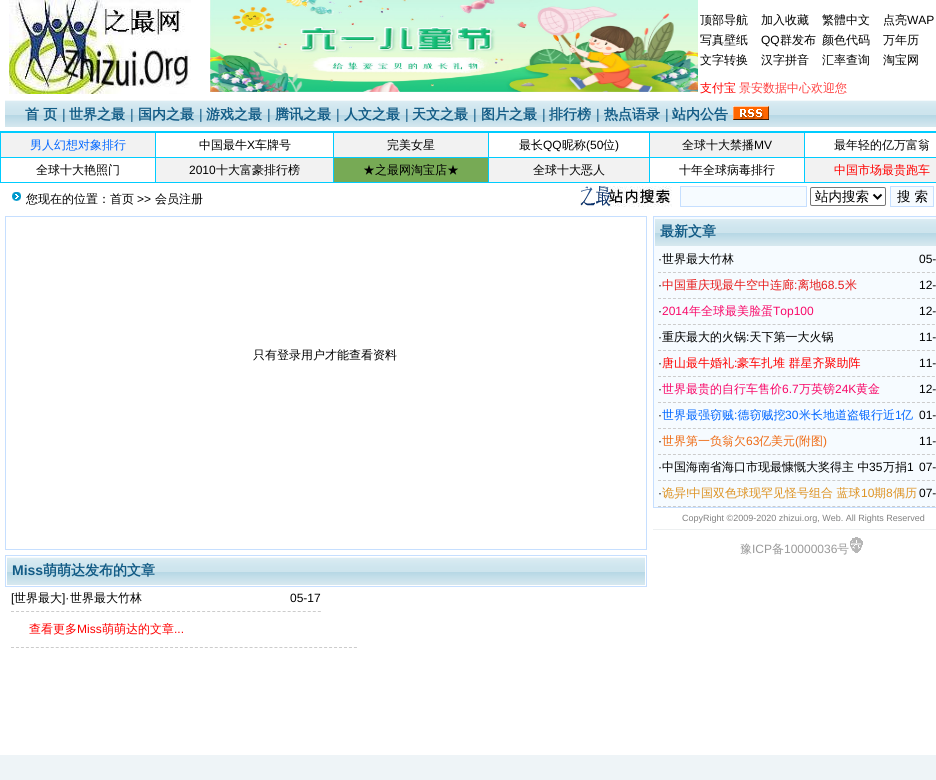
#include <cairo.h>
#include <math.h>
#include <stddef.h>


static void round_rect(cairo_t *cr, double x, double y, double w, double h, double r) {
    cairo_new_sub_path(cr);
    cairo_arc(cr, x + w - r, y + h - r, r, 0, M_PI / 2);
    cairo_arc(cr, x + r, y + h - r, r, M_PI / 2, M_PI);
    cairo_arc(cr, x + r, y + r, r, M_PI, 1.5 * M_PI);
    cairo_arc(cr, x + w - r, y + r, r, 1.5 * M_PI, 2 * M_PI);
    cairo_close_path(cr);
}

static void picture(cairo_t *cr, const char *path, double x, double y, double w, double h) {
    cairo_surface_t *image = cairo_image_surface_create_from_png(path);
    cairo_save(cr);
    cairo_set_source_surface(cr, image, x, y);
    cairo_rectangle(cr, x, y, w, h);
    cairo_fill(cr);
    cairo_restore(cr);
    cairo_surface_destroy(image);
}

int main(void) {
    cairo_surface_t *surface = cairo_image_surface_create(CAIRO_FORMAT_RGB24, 936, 780);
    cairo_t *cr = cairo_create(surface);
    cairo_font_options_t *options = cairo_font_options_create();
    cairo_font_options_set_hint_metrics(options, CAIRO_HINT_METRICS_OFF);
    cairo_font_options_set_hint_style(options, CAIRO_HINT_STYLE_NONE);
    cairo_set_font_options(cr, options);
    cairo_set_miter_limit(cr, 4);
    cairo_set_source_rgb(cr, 0.933, 0.957, 0.965);
    cairo_paint(cr);
    cairo_set_source_rgb(cr, 1, 1, 1);
    cairo_rectangle(cr, 0, 0, 936, 755);
    cairo_fill(cr);
    picture(cr, "img1.png", 9, 0, 182, 94);
    picture(cr, "img2.png", 210, 0, 488, 92);
    cairo_select_font_face(cr, "WenQuanYi Zen Hei Medium", CAIRO_FONT_SLANT_NORMAL, CAIRO_FONT_WEIGHT_NORMAL);
    cairo_set_font_size(cr, 12);
    cairo_set_source_rgb(cr, 0, 0, 0);
    cairo_move_to(cr, 700, 24);
    cairo_show_text(cr, "顶部导航");
    cairo_move_to(cr, 761, 24);
    cairo_show_text(cr, "加入收藏");
    cairo_move_to(cr, 822, 24);
    cairo_show_text(cr, "繁體中文");
    cairo_move_to(cr, 883, 24);
    cairo_show_text(cr, "点亮");
    cairo_select_font_face(cr, "Liberation Sans", CAIRO_FONT_SLANT_NORMAL, CAIRO_FONT_WEIGHT_NORMAL);
    cairo_move_to(cr, 907, 24);
    cairo_show_text(cr, "WAP");
    cairo_select_font_face(cr, "WenQuanYi Zen Hei Medium", CAIRO_FONT_SLANT_NORMAL, CAIRO_FONT_WEIGHT_NORMAL);
    cairo_move_to(cr, 700, 44);
    cairo_show_text(cr, "写真壁纸");
    cairo_select_font_face(cr, "Liberation Sans", CAIRO_FONT_SLANT_NORMAL, CAIRO_FONT_WEIGHT_NORMAL);
    cairo_move_to(cr, 761, 44);
    cairo_show_text(cr, "QQ");
    cairo_select_font_face(cr, "WenQuanYi Zen Hei Medium", CAIRO_FONT_SLANT_NORMAL, CAIRO_FONT_WEIGHT_NORMAL);
    cairo_move_to(cr, 780, 44);
    cairo_show_text(cr, "群发布");
    cairo_move_to(cr, 822, 44);
    cairo_show_text(cr, "颜色代码");
    cairo_move_to(cr, 883, 44);
    cairo_show_text(cr, "万年历");
    cairo_move_to(cr, 700, 64);
    cairo_show_text(cr, "文字转换");
    cairo_move_to(cr, 761, 64);
    cairo_show_text(cr, "汉字拼音");
    cairo_move_to(cr, 822, 64);
    cairo_show_text(cr, "汇率查询");
    cairo_move_to(cr, 883, 64);
    cairo_show_text(cr, "淘宝网");
    cairo_set_source_rgb(cr, 1, 0, 0);
    cairo_move_to(cr, 700, 92);
    cairo_show_text(cr, "支付宝");
    cairo_set_source_rgb(cr, 1, 0.267, 0.267);
    cairo_move_to(cr, 739, 92);
    cairo_show_text(cr, "景安数据中心欢迎您");
    picture(cr, "img3.png", 5, 100, 931, 27);
    cairo_select_font_face(cr, "WenQuanYi Zen Hei", CAIRO_FONT_SLANT_NORMAL, CAIRO_FONT_WEIGHT_BOLD);
    cairo_set_font_size(cr, 14);
    cairo_set_source_rgb(cr, 0.075, 0.361, 0.525);
    cairo_move_to(cr, 25, 119);
    cairo_show_text(cr, "首 页");
    cairo_select_font_face(cr, "Liberation Sans", CAIRO_FONT_SLANT_NORMAL, CAIRO_FONT_WEIGHT_NORMAL);
    cairo_move_to(cr, 62, 119);
    cairo_show_text(cr, "|");
    cairo_select_font_face(cr, "WenQuanYi Zen Hei", CAIRO_FONT_SLANT_NORMAL, CAIRO_FONT_WEIGHT_BOLD);
    cairo_move_to(cr, 69, 119);
    cairo_show_text(cr, "世界之最");
    cairo_select_font_face(cr, "Liberation Sans", CAIRO_FONT_SLANT_NORMAL, CAIRO_FONT_WEIGHT_NORMAL);
    cairo_move_to(cr, 130, 119);
    cairo_show_text(cr, "|");
    cairo_select_font_face(cr, "WenQuanYi Zen Hei", CAIRO_FONT_SLANT_NORMAL, CAIRO_FONT_WEIGHT_BOLD);
    cairo_move_to(cr, 138, 119);
    cairo_show_text(cr, "国内之最");
    cairo_select_font_face(cr, "Liberation Sans", CAIRO_FONT_SLANT_NORMAL, CAIRO_FONT_WEIGHT_NORMAL);
    cairo_move_to(cr, 199, 119);
    cairo_show_text(cr, "|");
    cairo_select_font_face(cr, "WenQuanYi Zen Hei", CAIRO_FONT_SLANT_NORMAL, CAIRO_FONT_WEIGHT_BOLD);
    cairo_move_to(cr, 206, 119);
    cairo_show_text(cr, "游戏之最");
    cairo_select_font_face(cr, "Liberation Sans", CAIRO_FONT_SLANT_NORMAL, CAIRO_FONT_WEIGHT_NORMAL);
    cairo_move_to(cr, 267, 119);
    cairo_show_text(cr, "|");
    cairo_select_font_face(cr, "WenQuanYi Zen Hei", CAIRO_FONT_SLANT_NORMAL, CAIRO_FONT_WEIGHT_BOLD);
    cairo_move_to(cr, 275, 119);
    cairo_show_text(cr, "腾讯之最");
    cairo_select_font_face(cr, "Liberation Sans", CAIRO_FONT_SLANT_NORMAL, CAIRO_FONT_WEIGHT_NORMAL);
    cairo_move_to(cr, 336, 119);
    cairo_show_text(cr, "|");
    cairo_select_font_face(cr, "WenQuanYi Zen Hei", CAIRO_FONT_SLANT_NORMAL, CAIRO_FONT_WEIGHT_BOLD);
    cairo_move_to(cr, 344, 119);
    cairo_show_text(cr, "人文之最");
    cairo_select_font_face(cr, "Liberation Sans", CAIRO_FONT_SLANT_NORMAL, CAIRO_FONT_WEIGHT_NORMAL);
    cairo_move_to(cr, 405, 119);
    cairo_show_text(cr, "|");
    cairo_select_font_face(cr, "WenQuanYi Zen Hei", CAIRO_FONT_SLANT_NORMAL, CAIRO_FONT_WEIGHT_BOLD);
    cairo_move_to(cr, 412, 119);
    cairo_show_text(cr, "天文之最");
    cairo_select_font_face(cr, "Liberation Sans", CAIRO_FONT_SLANT_NORMAL, CAIRO_FONT_WEIGHT_NORMAL);
    cairo_move_to(cr, 473, 119);
    cairo_show_text(cr, "|");
    cairo_select_font_face(cr, "WenQuanYi Zen Hei", CAIRO_FONT_SLANT_NORMAL, CAIRO_FONT_WEIGHT_BOLD);
    cairo_move_to(cr, 481, 119);
    cairo_show_text(cr, "图片之最");
    cairo_select_font_face(cr, "Liberation Sans", CAIRO_FONT_SLANT_NORMAL, CAIRO_FONT_WEIGHT_NORMAL);
    cairo_move_to(cr, 542, 119);
    cairo_show_text(cr, "|");
    cairo_select_font_face(cr, "WenQuanYi Zen Hei", CAIRO_FONT_SLANT_NORMAL, CAIRO_FONT_WEIGHT_BOLD);
    cairo_move_to(cr, 549, 119);
    cairo_show_text(cr, "排行榜");
    cairo_select_font_face(cr, "Liberation Sans", CAIRO_FONT_SLANT_NORMAL, CAIRO_FONT_WEIGHT_NORMAL);
    cairo_move_to(cr, 596, 119);
    cairo_show_text(cr, "|");
    cairo_select_font_face(cr, "WenQuanYi Zen Hei", CAIRO_FONT_SLANT_NORMAL, CAIRO_FONT_WEIGHT_BOLD);
    cairo_move_to(cr, 604, 119);
    cairo_show_text(cr, "热点语录");
    cairo_select_font_face(cr, "Liberation Sans", CAIRO_FONT_SLANT_NORMAL, CAIRO_FONT_WEIGHT_NORMAL);
    cairo_move_to(cr, 665, 119);
    cairo_show_text(cr, "|");
    cairo_select_font_face(cr, "WenQuanYi Zen Hei", CAIRO_FONT_SLANT_NORMAL, CAIRO_FONT_WEIGHT_BOLD);
    cairo_move_to(cr, 672, 119);
    cairo_show_text(cr, "站内公告");
    picture(cr, "img4.png", 733, 106, 36, 14);
    cairo_set_source_rgb(cr, 0, 0.8, 1);
    cairo_rectangle(cr, 0, 131, 936, 52);
    cairo_fill(cr);
    cairo_set_source_rgb(cr, 0.949, 0.949, 0.949);
    cairo_rectangle(cr, 1, 133, 154, 24);
    cairo_fill(cr);
    cairo_select_font_face(cr, "WenQuanYi Zen Hei Medium", CAIRO_FONT_SLANT_NORMAL, CAIRO_FONT_WEIGHT_NORMAL);
    cairo_set_font_size(cr, 12);
    cairo_set_source_rgb(cr, 0, 0.4, 1);
    cairo_move_to(cr, 30, 149);
    cairo_show_text(cr, "男人幻想对象排行");
    cairo_set_source_rgb(cr, 1, 1, 1);
    cairo_rectangle(cr, 156, 133, 177, 24);
    cairo_fill(cr);
    cairo_set_source_rgb(cr, 0, 0, 0);
    cairo_move_to(cr, 199, 149);
    cairo_show_text(cr, "中国最牛");
    cairo_select_font_face(cr, "Liberation Sans", CAIRO_FONT_SLANT_NORMAL, CAIRO_FONT_WEIGHT_NORMAL);
    cairo_move_to(cr, 247, 149);
    cairo_show_text(cr, "X");
    cairo_select_font_face(cr, "WenQuanYi Zen Hei Medium", CAIRO_FONT_SLANT_NORMAL, CAIRO_FONT_WEIGHT_NORMAL);
    cairo_move_to(cr, 255, 149);
    cairo_show_text(cr, "车牌号");
    cairo_set_source_rgb(cr, 0.949, 0.949, 0.949);
    cairo_rectangle(cr, 334, 133, 154, 24);
    cairo_fill(cr);
    cairo_set_source_rgb(cr, 0, 0, 0);
    cairo_move_to(cr, 387, 149);
    cairo_show_text(cr, "完美女星");
    cairo_set_source_rgb(cr, 1, 1, 1);
    cairo_rectangle(cr, 489, 133, 160, 24);
    cairo_fill(cr);
    cairo_set_source_rgb(cr, 0, 0, 0);
    cairo_move_to(cr, 519, 149);
    cairo_show_text(cr, "最长");
    cairo_select_font_face(cr, "Liberation Sans", CAIRO_FONT_SLANT_NORMAL, CAIRO_FONT_WEIGHT_NORMAL);
    cairo_move_to(cr, 543, 149);
    cairo_show_text(cr, "QQ");
    cairo_select_font_face(cr, "WenQuanYi Zen Hei Medium", CAIRO_FONT_SLANT_NORMAL, CAIRO_FONT_WEIGHT_NORMAL);
    cairo_move_to(cr, 562, 149);
    cairo_show_text(cr, "昵称");
    cairo_select_font_face(cr, "Liberation Sans", CAIRO_FONT_SLANT_NORMAL, CAIRO_FONT_WEIGHT_NORMAL);
    cairo_move_to(cr, 586, 149);
    cairo_show_text(cr, "(50");
    cairo_select_font_face(cr, "WenQuanYi Zen Hei Medium", CAIRO_FONT_SLANT_NORMAL, CAIRO_FONT_WEIGHT_NORMAL);
    cairo_move_to(cr, 603, 149);
    cairo_show_text(cr, "位");
    cairo_select_font_face(cr, "Liberation Sans", CAIRO_FONT_SLANT_NORMAL, CAIRO_FONT_WEIGHT_NORMAL);
    cairo_move_to(cr, 615, 149);
    cairo_show_text(cr, ")");
    cairo_set_source_rgb(cr, 0.949, 0.949, 0.949);
    cairo_rectangle(cr, 650, 133, 154, 24);
    cairo_fill(cr);
    cairo_select_font_face(cr, "WenQuanYi Zen Hei Medium", CAIRO_FONT_SLANT_NORMAL, CAIRO_FONT_WEIGHT_NORMAL);
    cairo_set_source_rgb(cr, 0, 0, 0);
    cairo_move_to(cr, 682, 149);
    cairo_show_text(cr, "全球十大禁播");
    cairo_select_font_face(cr, "Liberation Sans", CAIRO_FONT_SLANT_NORMAL, CAIRO_FONT_WEIGHT_NORMAL);
    cairo_move_to(cr, 754, 149);
    cairo_show_text(cr, "MV");
    cairo_set_source_rgb(cr, 1, 1, 1);
    cairo_rectangle(cr, 805, 133, 131, 24);
    cairo_fill(cr);
    cairo_select_font_face(cr, "WenQuanYi Zen Hei Medium", CAIRO_FONT_SLANT_NORMAL, CAIRO_FONT_WEIGHT_NORMAL);
    cairo_set_source_rgb(cr, 0, 0, 0);
    cairo_move_to(cr, 834, 149);
    cairo_show_text(cr, "最年轻的亿万富翁");
    cairo_set_source_rgb(cr, 1, 1, 1);
    cairo_rectangle(cr, 1, 158, 154, 24);
    cairo_fill(cr);
    cairo_set_source_rgb(cr, 0, 0, 0);
    cairo_move_to(cr, 36, 174);
    cairo_show_text(cr, "全球十大艳照门");
    cairo_set_source_rgb(cr, 0.949, 0.949, 0.949);
    cairo_rectangle(cr, 156, 158, 177, 24);
    cairo_fill(cr);
    cairo_select_font_face(cr, "Liberation Sans", CAIRO_FONT_SLANT_NORMAL, CAIRO_FONT_WEIGHT_NORMAL);
    cairo_set_source_rgb(cr, 0, 0, 0);
    cairo_move_to(cr, 189, 174);
    cairo_show_text(cr, "2010");
    cairo_select_font_face(cr, "WenQuanYi Zen Hei Medium", CAIRO_FONT_SLANT_NORMAL, CAIRO_FONT_WEIGHT_NORMAL);
    cairo_move_to(cr, 216, 174);
    cairo_show_text(cr, "十大富豪排行榜");
    cairo_set_source_rgb(cr, 0.467, 0.667, 0.333);
    cairo_rectangle(cr, 334, 158, 154, 24);
    cairo_fill(cr);
    cairo_set_source_rgb(cr, 0, 0, 0);
    cairo_move_to(cr, 363, 174);
    cairo_show_text(cr, "★之最网淘宝店★");
    cairo_set_source_rgb(cr, 0.949, 0.949, 0.949);
    cairo_rectangle(cr, 489, 158, 160, 24);
    cairo_fill(cr);
    cairo_set_source_rgb(cr, 0, 0, 0);
    cairo_move_to(cr, 533, 174);
    cairo_show_text(cr, "全球十大恶人");
    cairo_set_source_rgb(cr, 1, 1, 1);
    cairo_rectangle(cr, 650, 158, 154, 24);
    cairo_fill(cr);
    cairo_set_source_rgb(cr, 0, 0, 0);
    cairo_move_to(cr, 679, 174);
    cairo_show_text(cr, "十年全球病毒排行");
    cairo_set_source_rgb(cr, 0.949, 0.949, 0.949);
    cairo_rectangle(cr, 805, 158, 131, 24);
    cairo_fill(cr);
    cairo_set_source_rgb(cr, 1, 0, 0);
    cairo_move_to(cr, 834, 174);
    cairo_show_text(cr, "中国市场最贵跑车");
    picture(cr, "img5.png", 12, 192, 9, 9);
    cairo_set_source_rgb(cr, 0, 0, 0);
    cairo_move_to(cr, 26, 203);
    cairo_show_text(cr, "您现在的位置：首页");
    cairo_select_font_face(cr, "Liberation Sans", CAIRO_FONT_SLANT_NORMAL, CAIRO_FONT_WEIGHT_NORMAL);
    cairo_move_to(cr, 137, 203);
    cairo_show_text(cr, ">>");
    cairo_select_font_face(cr, "WenQuanYi Zen Hei Medium", CAIRO_FONT_SLANT_NORMAL, CAIRO_FONT_WEIGHT_NORMAL);
    cairo_move_to(cr, 155, 203);
    cairo_show_text(cr, "会员注册");
    picture(cr, "img6.png", 580, 186, 92, 21);
    cairo_set_source_rgb(cr, 0.961, 0.984, 1);
    cairo_rectangle(cr, 680.5, 186.5, 126, 20);
    cairo_fill_preserve(cr);
    cairo_set_source_rgb(cr, 0.776, 0.875, 1);
    cairo_set_line_width(cr, 1);
    cairo_stroke(cr);
    round_rect(cr, 810.5, 187.5, 75, 18, 1.5);
    cairo_set_source_rgb(cr, 0.463, 0.463, 0.463);
    cairo_stroke(cr);
    cairo_new_path(cr);
    cairo_move_to(cr, 873.5, 194.5);
    cairo_line_to(cr, 877.5, 198.5);
    cairo_line_to(cr, 881.5, 194.5);
    cairo_set_source_rgb(cr, 0, 0, 0);
    cairo_set_line_width(cr, 2);
    cairo_stroke(cr);
    cairo_set_font_size(cr, 13.5);
    cairo_move_to(cr, 815, 201);
    cairo_show_text(cr, "站内搜索");
    cairo_set_source_rgb(cr, 0.961, 0.984, 1);
    cairo_rectangle(cr, 890.5, 186.5, 43, 20);
    cairo_fill_preserve(cr);
    cairo_set_source_rgb(cr, 0.776, 0.875, 1);
    cairo_set_line_width(cr, 1);
    cairo_stroke(cr);
    cairo_set_source_rgb(cr, 0, 0, 0);
    cairo_move_to(cr, 897, 201);
    cairo_show_text(cr, "搜 索");
    cairo_rectangle(cr, 5.5, 216.5, 641, 333);
    cairo_set_source_rgb(cr, 0.776, 0.875, 1);
    cairo_stroke(cr);
    cairo_set_font_size(cr, 12);
    cairo_set_source_rgb(cr, 0, 0, 0);
    cairo_move_to(cr, 253, 359);
    cairo_show_text(cr, "只有登录用户才能查看资料");
    cairo_rectangle(cr, 5.5, 555.5, 641, 31);
    cairo_set_source_rgb(cr, 0.776, 0.875, 1);
    cairo_stroke(cr);
    picture(cr, "img7.png", 7, 557, 638, 28);
    cairo_select_font_face(cr, "Liberation Sans", CAIRO_FONT_SLANT_NORMAL, CAIRO_FONT_WEIGHT_BOLD);
    cairo_set_font_size(cr, 14);
    cairo_set_source_rgb(cr, 0.075, 0.361, 0.525);
    cairo_move_to(cr, 12, 575);
    cairo_show_text(cr, "Miss");
    cairo_select_font_face(cr, "WenQuanYi Zen Hei", CAIRO_FONT_SLANT_NORMAL, CAIRO_FONT_WEIGHT_BOLD);
    cairo_move_to(cr, 43, 575);
    cairo_show_text(cr, "萌萌达发布的文章");
    cairo_new_path(cr);
    cairo_move_to(cr, 11, 611.5);
    cairo_line_to(cr, 321, 611.5);
    cairo_set_source_rgb(cr, 0.8, 0.8, 0.8);
    cairo_set_dash(cr, (double[]){3, 2.03}, 2, 0);
    cairo_stroke(cr);
    cairo_select_font_face(cr, "Liberation Sans", CAIRO_FONT_SLANT_NORMAL, CAIRO_FONT_WEIGHT_NORMAL);
    cairo_set_font_size(cr, 12);
    cairo_set_source_rgb(cr, 0, 0, 0);
    cairo_move_to(cr, 11, 602);
    cairo_show_text(cr, "[");
    cairo_select_font_face(cr, "WenQuanYi Zen Hei Medium", CAIRO_FONT_SLANT_NORMAL, CAIRO_FONT_WEIGHT_NORMAL);
    cairo_move_to(cr, 14, 602);
    cairo_show_text(cr, "世界最大");
    cairo_select_font_face(cr, "Liberation Sans", CAIRO_FONT_SLANT_NORMAL, CAIRO_FONT_WEIGHT_NORMAL);
    cairo_move_to(cr, 62, 602);
    cairo_show_text(cr, "]·");
    cairo_select_font_face(cr, "WenQuanYi Zen Hei Medium", CAIRO_FONT_SLANT_NORMAL, CAIRO_FONT_WEIGHT_NORMAL);
    cairo_move_to(cr, 70, 602);
    cairo_show_text(cr, "世界最大竹林");
    cairo_select_font_face(cr, "Liberation Sans", CAIRO_FONT_SLANT_NORMAL, CAIRO_FONT_WEIGHT_NORMAL);
    cairo_move_to(cr, 290, 602);
    cairo_show_text(cr, "05-17");
    cairo_new_path(cr);
    cairo_move_to(cr, 11, 647.5);
    cairo_line_to(cr, 357, 647.5);
    cairo_set_source_rgb(cr, 0.8, 0.8, 0.8);
    cairo_set_dash(cr, (double[]){3, 1.97}, 2, 0);
    cairo_stroke(cr);
    cairo_select_font_face(cr, "WenQuanYi Zen Hei Medium", CAIRO_FONT_SLANT_NORMAL, CAIRO_FONT_WEIGHT_NORMAL);
    cairo_set_source_rgb(cr, 1, 0, 0);
    cairo_move_to(cr, 29, 633);
    cairo_show_text(cr, "查看更多");
    cairo_select_font_face(cr, "Liberation Sans", CAIRO_FONT_SLANT_NORMAL, CAIRO_FONT_WEIGHT_NORMAL);
    cairo_move_to(cr, 77, 633);
    cairo_show_text(cr, "Miss");
    cairo_select_font_face(cr, "WenQuanYi Zen Hei Medium", CAIRO_FONT_SLANT_NORMAL, CAIRO_FONT_WEIGHT_NORMAL);
    cairo_move_to(cr, 102, 633);
    cairo_show_text(cr, "萌萌达的文章");
    cairo_select_font_face(cr, "Liberation Sans", CAIRO_FONT_SLANT_NORMAL, CAIRO_FONT_WEIGHT_NORMAL);
    cairo_move_to(cr, 174, 633);
    cairo_show_text(cr, "...");
    cairo_set_source_rgb(cr, 0.961, 0.984, 1);
    cairo_rectangle(cr, 653.5, 216.5, 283, 291);
    cairo_fill_preserve(cr);
    cairo_set_source_rgb(cr, 0.776, 0.875, 1);
    cairo_set_dash(cr, NULL, 0, 0);
    cairo_stroke(cr);
    picture(cr, "img8.png", 655, 219, 281, 27);
    cairo_select_font_face(cr, "WenQuanYi Zen Hei", CAIRO_FONT_SLANT_NORMAL, CAIRO_FONT_WEIGHT_BOLD);
    cairo_set_font_size(cr, 14);
    cairo_set_source_rgb(cr, 0.075, 0.361, 0.525);
    cairo_move_to(cr, 660, 236);
    cairo_show_text(cr, "最新文章");
    cairo_new_path(cr);
    cairo_move_to(cr, 658, 272.5);
    cairo_line_to(cr, 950, 272.5);
    cairo_set_source_rgb(cr, 0.8, 0.8, 0.8);
    cairo_set_dash(cr, (double[]){3, 1.98}, 2, 0);
    cairo_stroke(cr);
    cairo_select_font_face(cr, "Liberation Sans", CAIRO_FONT_SLANT_NORMAL, CAIRO_FONT_WEIGHT_NORMAL);
    cairo_set_font_size(cr, 12);
    cairo_set_source_rgb(cr, 0, 0, 0);
    cairo_move_to(cr, 658, 263);
    cairo_show_text(cr, "·");
    cairo_select_font_face(cr, "WenQuanYi Zen Hei Medium", CAIRO_FONT_SLANT_NORMAL, CAIRO_FONT_WEIGHT_NORMAL);
    cairo_move_to(cr, 662, 263);
    cairo_show_text(cr, "世界最大竹林");
    cairo_select_font_face(cr, "Liberation Sans", CAIRO_FONT_SLANT_NORMAL, CAIRO_FONT_WEIGHT_NORMAL);
    cairo_move_to(cr, 919, 263);
    cairo_show_text(cr, "05-");
    cairo_new_path(cr);
    cairo_move_to(cr, 658, 298.5);
    cairo_line_to(cr, 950, 298.5);
    cairo_set_source_rgb(cr, 0.8, 0.8, 0.8);
    cairo_stroke(cr);
    cairo_select_font_face(cr, "WenQuanYi Zen Hei Medium", CAIRO_FONT_SLANT_NORMAL, CAIRO_FONT_WEIGHT_NORMAL);
    cairo_set_source_rgb(cr, 0.902, 0.102, 0.102);
    cairo_move_to(cr, 662, 289);
    cairo_show_text(cr, "中国重庆现最牛空中连廊 离地");
    cairo_select_font_face(cr, "Liberation Sans", CAIRO_FONT_SLANT_NORMAL, CAIRO_FONT_WEIGHT_NORMAL);
    cairo_move_to(cr, 821, 289);
    cairo_show_text(cr, "68.5");
    cairo_select_font_face(cr, "WenQuanYi Zen Hei Medium", CAIRO_FONT_SLANT_NORMAL, CAIRO_FONT_WEIGHT_NORMAL);
    cairo_move_to(cr, 845, 289);
    cairo_show_text(cr, "米");
    cairo_select_font_face(cr, "Liberation Sans", CAIRO_FONT_SLANT_NORMAL, CAIRO_FONT_WEIGHT_NORMAL);
    cairo_set_source_rgb(cr, 0, 0, 0);
    cairo_move_to(cr, 919, 289);
    cairo_show_text(cr, "12-");
    cairo_move_to(cr, 658, 289);
    cairo_show_text(cr, "·");
    cairo_set_source_rgb(cr, 0.902, 0.102, 0.102);
    cairo_move_to(cr, 794, 289);
    cairo_show_text(cr, ":");
    cairo_new_path(cr);
    cairo_move_to(cr, 658, 324.5);
    cairo_line_to(cr, 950, 324.5);
    cairo_set_source_rgb(cr, 0.8, 0.8, 0.8);
    cairo_stroke(cr);
    cairo_set_source_rgb(cr, 0, 0, 0);
    cairo_move_to(cr, 658, 315);
    cairo_show_text(cr, "·");
    cairo_set_source_rgb(cr, 0.969, 0.035, 0.408);
    cairo_move_to(cr, 662, 315);
    cairo_show_text(cr, "2014");
    cairo_select_font_face(cr, "WenQuanYi Zen Hei Medium", CAIRO_FONT_SLANT_NORMAL, CAIRO_FONT_WEIGHT_NORMAL);
    cairo_move_to(cr, 689, 315);
    cairo_show_text(cr, "年全球最美脸蛋");
    cairo_select_font_face(cr, "Liberation Sans", CAIRO_FONT_SLANT_NORMAL, CAIRO_FONT_WEIGHT_NORMAL);
    cairo_move_to(cr, 773, 315);
    cairo_show_text(cr, "Top100");
    cairo_set_source_rgb(cr, 0, 0, 0);
    cairo_move_to(cr, 919, 315);
    cairo_show_text(cr, "12-");
    cairo_new_path(cr);
    cairo_move_to(cr, 658, 350.5);
    cairo_line_to(cr, 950, 350.5);
    cairo_set_source_rgb(cr, 0.8, 0.8, 0.8);
    cairo_stroke(cr);
    cairo_select_font_face(cr, "WenQuanYi Zen Hei Medium", CAIRO_FONT_SLANT_NORMAL, CAIRO_FONT_WEIGHT_NORMAL);
    cairo_set_source_rgb(cr, 0, 0, 0);
    cairo_move_to(cr, 662, 341);
    cairo_show_text(cr, "重庆最大的火锅 天下第一大火锅");
    cairo_select_font_face(cr, "Liberation Sans", CAIRO_FONT_SLANT_NORMAL, CAIRO_FONT_WEIGHT_NORMAL);
    cairo_move_to(cr, 919, 341);
    cairo_show_text(cr, "11-");
    cairo_move_to(cr, 658, 341);
    cairo_show_text(cr, "·");
    cairo_move_to(cr, 746, 341);
    cairo_show_text(cr, ":");
    cairo_new_path(cr);
    cairo_move_to(cr, 658, 376.5);
    cairo_line_to(cr, 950, 376.5);
    cairo_set_source_rgb(cr, 0.8, 0.8, 0.8);
    cairo_stroke(cr);
    cairo_set_source_rgb(cr, 0, 0, 0);
    cairo_move_to(cr, 658, 367);
    cairo_show_text(cr, "·");
    cairo_select_font_face(cr, "WenQuanYi Zen Hei Medium", CAIRO_FONT_SLANT_NORMAL, CAIRO_FONT_WEIGHT_NORMAL);
    cairo_set_source_rgb(cr, 1, 0, 0);
    cairo_move_to(cr, 662, 367);
    cairo_show_text(cr, "唐山最牛婚礼");
    cairo_select_font_face(cr, "Liberation Sans", CAIRO_FONT_SLANT_NORMAL, CAIRO_FONT_WEIGHT_NORMAL);
    cairo_move_to(cr, 734, 367);
    cairo_show_text(cr, ":");
    cairo_select_font_face(cr, "WenQuanYi Zen Hei Medium", CAIRO_FONT_SLANT_NORMAL, CAIRO_FONT_WEIGHT_NORMAL);
    cairo_move_to(cr, 737, 367);
    cairo_show_text(cr, "豪车扎堆 群星齐聚助阵");
    cairo_select_font_face(cr, "Liberation Sans", CAIRO_FONT_SLANT_NORMAL, CAIRO_FONT_WEIGHT_NORMAL);
    cairo_set_source_rgb(cr, 0, 0, 0);
    cairo_move_to(cr, 919, 367);
    cairo_show_text(cr, "11-");
    cairo_new_path(cr);
    cairo_move_to(cr, 658, 402.5);
    cairo_line_to(cr, 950, 402.5);
    cairo_set_source_rgb(cr, 0.8, 0.8, 0.8);
    cairo_stroke(cr);
    cairo_set_source_rgb(cr, 0, 0, 0);
    cairo_move_to(cr, 658, 393);
    cairo_show_text(cr, "·");
    cairo_select_font_face(cr, "WenQuanYi Zen Hei Medium", CAIRO_FONT_SLANT_NORMAL, CAIRO_FONT_WEIGHT_NORMAL);
    cairo_set_source_rgb(cr, 0.969, 0.035, 0.408);
    cairo_move_to(cr, 662, 393);
    cairo_show_text(cr, "世界最贵的自行车售价");
    cairo_select_font_face(cr, "Liberation Sans", CAIRO_FONT_SLANT_NORMAL, CAIRO_FONT_WEIGHT_NORMAL);
    cairo_move_to(cr, 782, 393);
    cairo_show_text(cr, "6.7");
    cairo_select_font_face(cr, "WenQuanYi Zen Hei Medium", CAIRO_FONT_SLANT_NORMAL, CAIRO_FONT_WEIGHT_NORMAL);
    cairo_move_to(cr, 799, 393);
    cairo_show_text(cr, "万英镑");
    cairo_select_font_face(cr, "Liberation Sans", CAIRO_FONT_SLANT_NORMAL, CAIRO_FONT_WEIGHT_NORMAL);
    cairo_move_to(cr, 835, 393);
    cairo_show_text(cr, "24K");
    cairo_select_font_face(cr, "WenQuanYi Zen Hei Medium", CAIRO_FONT_SLANT_NORMAL, CAIRO_FONT_WEIGHT_NORMAL);
    cairo_move_to(cr, 856, 393);
    cairo_show_text(cr, "黄金");
    cairo_select_font_face(cr, "Liberation Sans", CAIRO_FONT_SLANT_NORMAL, CAIRO_FONT_WEIGHT_NORMAL);
    cairo_set_source_rgb(cr, 0, 0, 0);
    cairo_move_to(cr, 919, 393);
    cairo_show_text(cr, "12-");
    cairo_new_path(cr);
    cairo_move_to(cr, 658, 428.5);
    cairo_line_to(cr, 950, 428.5);
    cairo_set_source_rgb(cr, 0.8, 0.8, 0.8);
    cairo_stroke(cr);
    cairo_select_font_face(cr, "WenQuanYi Zen Hei Medium", CAIRO_FONT_SLANT_NORMAL, CAIRO_FONT_WEIGHT_NORMAL);
    cairo_set_source_rgb(cr, 0, 0.4, 1);
    cairo_move_to(cr, 662, 419);
    cairo_show_text(cr, "世界最强窃贼 德窃贼挖");
    cairo_select_font_face(cr, "Liberation Sans", CAIRO_FONT_SLANT_NORMAL, CAIRO_FONT_WEIGHT_NORMAL);
    cairo_move_to(cr, 785, 419);
    cairo_show_text(cr, "30");
    cairo_select_font_face(cr, "WenQuanYi Zen Hei Medium", CAIRO_FONT_SLANT_NORMAL, CAIRO_FONT_WEIGHT_NORMAL);
    cairo_move_to(cr, 799, 419);
    cairo_show_text(cr, "米长地道盗银行近");
    cairo_select_font_face(cr, "Liberation Sans", CAIRO_FONT_SLANT_NORMAL, CAIRO_FONT_WEIGHT_NORMAL);
    cairo_move_to(cr, 895, 419);
    cairo_show_text(cr, "1");
    cairo_select_font_face(cr, "WenQuanYi Zen Hei Medium", CAIRO_FONT_SLANT_NORMAL, CAIRO_FONT_WEIGHT_NORMAL);
    cairo_move_to(cr, 901, 419);
    cairo_show_text(cr, "亿");
    cairo_select_font_face(cr, "Liberation Sans", CAIRO_FONT_SLANT_NORMAL, CAIRO_FONT_WEIGHT_NORMAL);
    cairo_set_source_rgb(cr, 0, 0, 0);
    cairo_move_to(cr, 919, 419);
    cairo_show_text(cr, "01-");
    cairo_move_to(cr, 658, 419);
    cairo_show_text(cr, "·");
    cairo_set_source_rgb(cr, 0, 0.4, 1);
    cairo_move_to(cr, 734, 419);
    cairo_show_text(cr, ":");
    cairo_new_path(cr);
    cairo_move_to(cr, 658, 454.5);
    cairo_line_to(cr, 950, 454.5);
    cairo_set_source_rgb(cr, 0.8, 0.8, 0.8);
    cairo_stroke(cr);
    cairo_set_source_rgb(cr, 0, 0, 0);
    cairo_move_to(cr, 658, 445);
    cairo_show_text(cr, "·");
    cairo_select_font_face(cr, "WenQuanYi Zen Hei Medium", CAIRO_FONT_SLANT_NORMAL, CAIRO_FONT_WEIGHT_NORMAL);
    cairo_set_source_rgb(cr, 0.933, 0.412, 0.067);
    cairo_move_to(cr, 662, 445);
    cairo_show_text(cr, "世界第一负翁欠");
    cairo_select_font_face(cr, "Liberation Sans", CAIRO_FONT_SLANT_NORMAL, CAIRO_FONT_WEIGHT_NORMAL);
    cairo_move_to(cr, 746, 445);
    cairo_show_text(cr, "63");
    cairo_select_font_face(cr, "WenQuanYi Zen Hei Medium", CAIRO_FONT_SLANT_NORMAL, CAIRO_FONT_WEIGHT_NORMAL);
    cairo_move_to(cr, 759, 445);
    cairo_show_text(cr, "亿美元");
    cairo_select_font_face(cr, "Liberation Sans", CAIRO_FONT_SLANT_NORMAL, CAIRO_FONT_WEIGHT_NORMAL);
    cairo_move_to(cr, 795, 445);
    cairo_show_text(cr, "(");
    cairo_select_font_face(cr, "WenQuanYi Zen Hei Medium", CAIRO_FONT_SLANT_NORMAL, CAIRO_FONT_WEIGHT_NORMAL);
    cairo_move_to(cr, 799, 445);
    cairo_show_text(cr, "附图");
    cairo_select_font_face(cr, "Liberation Sans", CAIRO_FONT_SLANT_NORMAL, CAIRO_FONT_WEIGHT_NORMAL);
    cairo_move_to(cr, 823, 445);
    cairo_show_text(cr, ")");
    cairo_set_source_rgb(cr, 0, 0, 0);
    cairo_move_to(cr, 919, 445);
    cairo_show_text(cr, "11-");
    cairo_new_path(cr);
    cairo_move_to(cr, 658, 480.5);
    cairo_line_to(cr, 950, 480.5);
    cairo_set_source_rgb(cr, 0.8, 0.8, 0.8);
    cairo_stroke(cr);
    cairo_set_source_rgb(cr, 0, 0, 0);
    cairo_move_to(cr, 658, 471);
    cairo_show_text(cr, "·");
    cairo_select_font_face(cr, "WenQuanYi Zen Hei Medium", CAIRO_FONT_SLANT_NORMAL, CAIRO_FONT_WEIGHT_NORMAL);
    cairo_move_to(cr, 662, 471);
    cairo_show_text(cr, "中国海南省海口市现最慷慨大奖得主 中");
    cairo_select_font_face(cr, "Liberation Sans", CAIRO_FONT_SLANT_NORMAL, CAIRO_FONT_WEIGHT_NORMAL);
    cairo_move_to(cr, 869, 471);
    cairo_show_text(cr, "35");
    cairo_select_font_face(cr, "WenQuanYi Zen Hei Medium", CAIRO_FONT_SLANT_NORMAL, CAIRO_FONT_WEIGHT_NORMAL);
    cairo_move_to(cr, 883, 471);
    cairo_show_text(cr, "万捐");
    cairo_select_font_face(cr, "Liberation Sans", CAIRO_FONT_SLANT_NORMAL, CAIRO_FONT_WEIGHT_NORMAL);
    cairo_move_to(cr, 907, 471);
    cairo_show_text(cr, "1");
    cairo_move_to(cr, 919, 471);
    cairo_show_text(cr, "07-");
    cairo_new_path(cr);
    cairo_move_to(cr, 658, 506.5);
    cairo_line_to(cr, 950, 506.5);
    cairo_set_source_rgb(cr, 0.8, 0.8, 0.8);
    cairo_stroke(cr);
    cairo_set_source_rgb(cr, 0, 0, 0);
    cairo_move_to(cr, 658, 497);
    cairo_show_text(cr, "·");
    cairo_select_font_face(cr, "WenQuanYi Zen Hei Medium", CAIRO_FONT_SLANT_NORMAL, CAIRO_FONT_WEIGHT_NORMAL);
    cairo_set_source_rgb(cr, 0.867, 0.573, 0.133);
    cairo_move_to(cr, 662, 497);
    cairo_show_text(cr, "诡异");
    cairo_select_font_face(cr, "Liberation Sans", CAIRO_FONT_SLANT_NORMAL, CAIRO_FONT_WEIGHT_NORMAL);
    cairo_move_to(cr, 686, 497);
    cairo_show_text(cr, "!");
    cairo_select_font_face(cr, "WenQuanYi Zen Hei Medium", CAIRO_FONT_SLANT_NORMAL, CAIRO_FONT_WEIGHT_NORMAL);
    cairo_move_to(cr, 689, 497);
    cairo_show_text(cr, "中国双色球现罕见怪号组合 蓝球");
    cairo_select_font_face(cr, "Liberation Sans", CAIRO_FONT_SLANT_NORMAL, CAIRO_FONT_WEIGHT_NORMAL);
    cairo_move_to(cr, 861, 497);
    cairo_show_text(cr, "10");
    cairo_select_font_face(cr, "WenQuanYi Zen Hei Medium", CAIRO_FONT_SLANT_NORMAL, CAIRO_FONT_WEIGHT_NORMAL);
    cairo_move_to(cr, 874, 497);
    cairo_show_text(cr, "期");
    cairo_select_font_face(cr, "Liberation Sans", CAIRO_FONT_SLANT_NORMAL, CAIRO_FONT_WEIGHT_NORMAL);
    cairo_move_to(cr, 886, 497);
    cairo_show_text(cr, "8");
    cairo_select_font_face(cr, "WenQuanYi Zen Hei Medium", CAIRO_FONT_SLANT_NORMAL, CAIRO_FONT_WEIGHT_NORMAL);
    cairo_move_to(cr, 893, 497);
    cairo_show_text(cr, "偶历");
    cairo_select_font_face(cr, "Liberation Sans", CAIRO_FONT_SLANT_NORMAL, CAIRO_FONT_WEIGHT_NORMAL);
    cairo_set_source_rgb(cr, 0, 0, 0);
    cairo_move_to(cr, 919, 497);
    cairo_show_text(cr, "07-");
    cairo_set_font_size(cr, 9);
    cairo_set_source_rgb(cr, 0.502, 0.502, 0.502);
    cairo_move_to(cr, 682, 521);
    cairo_show_text(cr, "CopyRight ©2009-2020 zhizui.org, Web. All Rights Reserved");
    cairo_set_source_rgb(cr, 0.929, 0.941, 0.945);
    cairo_rectangle(cr, 653, 529, 283, 1);
    cairo_fill(cr);
    cairo_select_font_face(cr, "WenQuanYi Zen Hei Medium", CAIRO_FONT_SLANT_NORMAL, CAIRO_FONT_WEIGHT_NORMAL);
    cairo_set_font_size(cr, 12);
    cairo_set_source_rgb(cr, 0.6, 0.6, 0.6);
    cairo_move_to(cr, 740, 553);
    cairo_show_text(cr, "豫");
    cairo_select_font_face(cr, "Liberation Sans", CAIRO_FONT_SLANT_NORMAL, CAIRO_FONT_WEIGHT_NORMAL);
    cairo_move_to(cr, 752, 553);
    cairo_show_text(cr, "ICP");
    cairo_select_font_face(cr, "WenQuanYi Zen Hei Medium", CAIRO_FONT_SLANT_NORMAL, CAIRO_FONT_WEIGHT_NORMAL);
    cairo_move_to(cr, 772, 553);
    cairo_show_text(cr, "备");
    cairo_select_font_face(cr, "Liberation Sans", CAIRO_FONT_SLANT_NORMAL, CAIRO_FONT_WEIGHT_NORMAL);
    cairo_move_to(cr, 784, 553);
    cairo_show_text(cr, "10000036");
    cairo_select_font_face(cr, "WenQuanYi Zen Hei Medium", CAIRO_FONT_SLANT_NORMAL, CAIRO_FONT_WEIGHT_NORMAL);
    cairo_move_to(cr, 837, 553);
    cairo_show_text(cr, "号");
    picture(cr, "img9.png", 850, 537, 13, 16);
    cairo_surface_write_to_png(surface, "page.png");
    cairo_font_options_destroy(options);
    cairo_destroy(cr);
    cairo_surface_destroy(surface);
    return 0;
}
